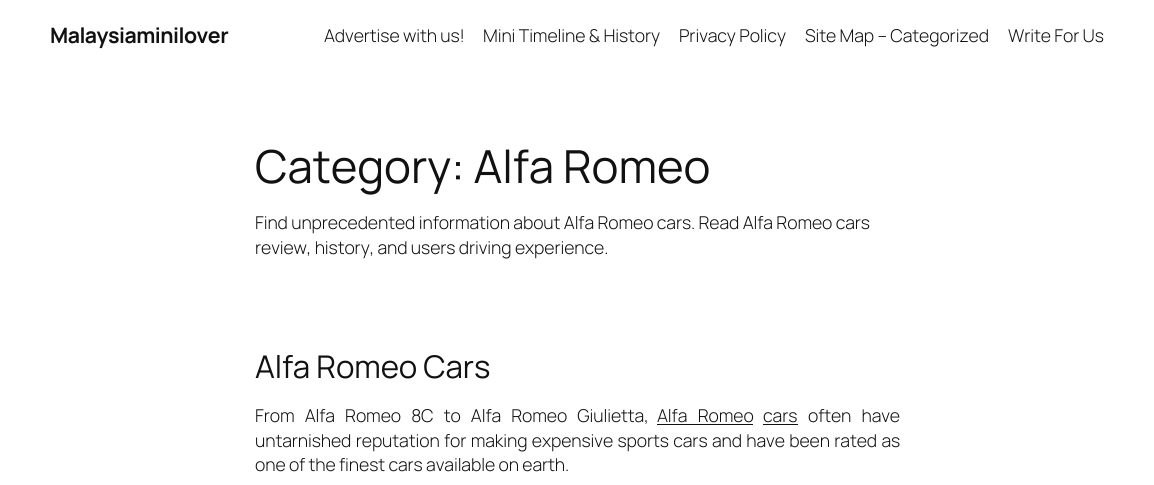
#include <cairo.h>
#include <math.h>
#include <stddef.h>


static void spaced_text(cairo_t *cr, double x, double y, const char *s, double letter, double word) {
    cairo_move_to(cr, x, y);
    while (*s) {
        char ch[5] = {0};
        int n = 0;
        do ch[n++] = *s++; while ((*s & 0xC0) == 0x80);
        cairo_show_text(cr, ch);
        cairo_rel_move_to(cr, letter + word * (*ch == ' '), 0);
    }
}

int main(void) {
    cairo_surface_t *surface = cairo_image_surface_create(CAIRO_FORMAT_RGB24, 1154, 485);
    cairo_t *cr = cairo_create(surface);
    cairo_font_options_t *options = cairo_font_options_create();
    cairo_font_options_set_hint_metrics(options, CAIRO_HINT_METRICS_OFF);
    cairo_font_options_set_hint_style(options, CAIRO_HINT_STYLE_NONE);
    cairo_set_font_options(cr, options);
    cairo_set_miter_limit(cr, 4);
    cairo_set_source_rgb(cr, 1, 1, 1);
    cairo_paint(cr);
    cairo_select_font_face(cr, "Manrope", CAIRO_FONT_SLANT_NORMAL, CAIRO_FONT_WEIGHT_BOLD);
    cairo_set_font_size(cr, 21.25);
    cairo_set_source_rgb(cr, 0.067, 0.067, 0.067);
    spaced_text(cr, 50, 43, "Malaysiaminilover", -0.5, 0);
    cairo_select_font_face(cr, "Manrope Light", CAIRO_FONT_SLANT_NORMAL, CAIRO_FONT_WEIGHT_NORMAL);
    cairo_set_font_size(cr, 17.65);
    spaced_text(cr, 324, 42, "Advertise with us!", -0.1, 0);
    spaced_text(cr, 483, 42, "Mini Timeline & History", -0.1, 0);
    spaced_text(cr, 679, 42, "Privacy Policy", -0.1, 0);
    spaced_text(cr, 805, 42, "Site Map – Categorized", -0.1, 0);
    spaced_text(cr, 1008, 42, "Write For Us", -0.1, 0);
    cairo_select_font_face(cr, "Manrope", CAIRO_FONT_SLANT_NORMAL, CAIRO_FONT_WEIGHT_NORMAL);
    cairo_set_font_size(cr, 45.5);
    spaced_text(cr, 255, 183, "Category: Alfa Romeo", -0.1, 0);
    cairo_select_font_face(cr, "Manrope Light", CAIRO_FONT_SLANT_NORMAL, CAIRO_FONT_WEIGHT_NORMAL);
    cairo_set_font_size(cr, 17.65);
    spaced_text(cr, 255, 229, "Find unprecedented information about Alfa Romeo cars. Read Alfa Romeo cars", -0.1, 0);
    spaced_text(cr, 255, 254, "review, history, and users driving experience.", -0.1, 0);
    cairo_select_font_face(cr, "Manrope", CAIRO_FONT_SLANT_NORMAL, CAIRO_FONT_WEIGHT_NORMAL);
    cairo_set_font_size(cr, 31.25);
    spaced_text(cr, 255, 378, "Alfa Romeo Cars", -0.1, 0);
    cairo_select_font_face(cr, "Manrope Light", CAIRO_FONT_SLANT_NORMAL, CAIRO_FONT_WEIGHT_NORMAL);
    cairo_set_font_size(cr, 17.65);
    spaced_text(cr, 255, 422, "From Alfa Romeo 8C to Alfa Romeo Giulietta,", -0.1, 6.75);
    spaced_text(cr, 657, 422, "Alfa Romeo", -0.1, 7);
    cairo_rectangle(cr, 657, 424, 96, 1);
    cairo_fill(cr);
    spaced_text(cr, 763, 422, "cars", -0.1, 0);
    cairo_rectangle(cr, 763, 424, 35, 1);
    cairo_fill(cr);
    spaced_text(cr, 808, 422, "often have", -0.1, 6.75);
    spaced_text(cr, 255, 447, "untarnished reputation for making expensive sports cars and have been rated as", -0.1, 1);
    spaced_text(cr, 255, 471, "one of the finest cars available on earth.", -0.1, 0);
    cairo_surface_write_to_png(surface, "page.png");
    cairo_font_options_destroy(options);
    cairo_destroy(cr);
    cairo_surface_destroy(surface);
    return 0;
}
